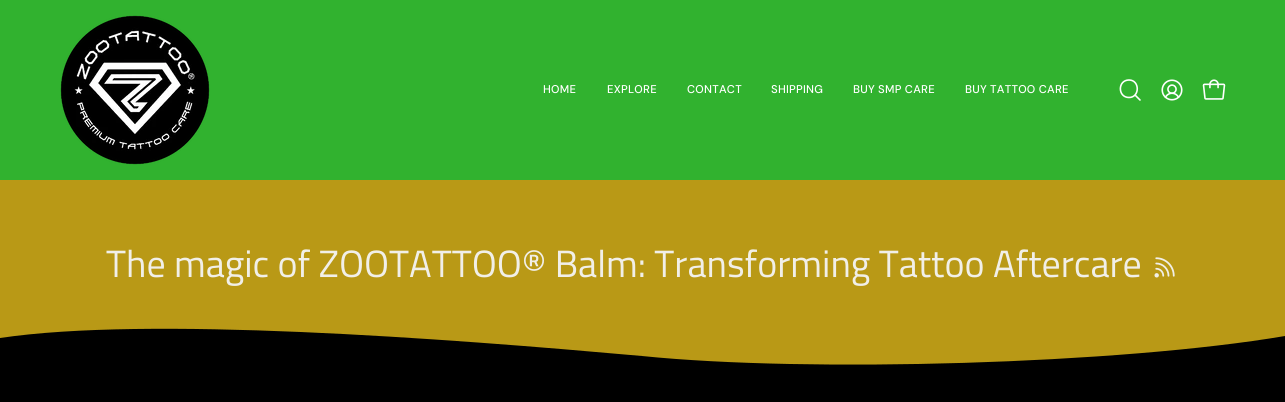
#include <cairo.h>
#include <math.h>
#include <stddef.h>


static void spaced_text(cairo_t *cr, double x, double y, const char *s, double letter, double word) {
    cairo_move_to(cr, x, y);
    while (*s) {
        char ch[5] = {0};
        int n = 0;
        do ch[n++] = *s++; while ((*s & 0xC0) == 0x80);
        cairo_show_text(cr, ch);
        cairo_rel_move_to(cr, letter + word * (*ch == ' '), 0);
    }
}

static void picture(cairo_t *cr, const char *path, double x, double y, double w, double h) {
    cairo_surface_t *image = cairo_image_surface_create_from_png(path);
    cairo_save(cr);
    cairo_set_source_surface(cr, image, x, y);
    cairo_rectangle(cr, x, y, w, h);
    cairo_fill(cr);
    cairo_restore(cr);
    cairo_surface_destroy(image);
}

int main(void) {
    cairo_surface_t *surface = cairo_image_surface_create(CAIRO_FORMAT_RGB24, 1285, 402);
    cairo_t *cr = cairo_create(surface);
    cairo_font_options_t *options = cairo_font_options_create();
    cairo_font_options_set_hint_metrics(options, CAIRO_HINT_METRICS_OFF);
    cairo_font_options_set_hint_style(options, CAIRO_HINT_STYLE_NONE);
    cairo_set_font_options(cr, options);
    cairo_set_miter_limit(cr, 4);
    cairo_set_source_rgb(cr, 0.192, 0.698, 0.184);
    cairo_paint(cr);
    picture(cr, "img1.png", 60, 15, 150, 150);
    cairo_select_font_face(cr, "DM Sans Medium", CAIRO_FONT_SLANT_NORMAL, CAIRO_FONT_WEIGHT_NORMAL);
    cairo_set_font_size(cr, 11.25);
    cairo_set_source_rgb(cr, 1, 1, 1);
    spaced_text(cr, 543, 93, "HOME", 0.25, 0);
    spaced_text(cr, 607, 93, "EXPLORE", 0.25, 0);
    spaced_text(cr, 687, 93, "CONTACT", 0.25, 0);
    spaced_text(cr, 771, 93, "SHIPPING", 0.25, 0);
    spaced_text(cr, 853, 93, "BUY SMP CARE", 0.25, 0);
    spaced_text(cr, 965, 93, "BUY TATTOO CARE", 0.25, 0);
    cairo_new_path(cr);
    cairo_move_to(cr, 1129, 97.5);
    cairo_curve_to(cr, 1140, 97.5, 1140, 80, 1129, 80);
    cairo_curve_to(cr, 1117.5, 80, 1117.5, 97.5, 1129, 97.5);
    cairo_close_path(cr);
    cairo_move_to(cr, 1135, 95);
    cairo_line_to(cr, 1140, 100);
    cairo_set_line_width(cr, 1.6);
    cairo_set_line_cap(cr, CAIRO_LINE_CAP_ROUND);
    cairo_set_line_join(cr, CAIRO_LINE_JOIN_ROUND);
    cairo_stroke(cr);
    picture(cr, "img2.png", 1161, 79, 22, 22);
    picture(cr, "img3.png", 1202, 79, 24, 21);
    cairo_set_source_rgb(cr, 0.725, 0.6, 0.086);
    cairo_rectangle(cr, 0, 180, 1285, 185);
    cairo_fill(cr);
    cairo_select_font_face(cr, "Titillium Web", CAIRO_FONT_SLANT_NORMAL, CAIRO_FONT_WEIGHT_NORMAL);
    cairo_set_font_size(cr, 38);
    cairo_set_source_rgb(cr, 0.945, 0.937, 0.91);
    cairo_move_to(cr, 106, 277);
    cairo_show_text(cr, "The magic of ZOOTATTOO® Balm: Transforming Tattoo Aftercare");
    picture(cr, "img4.png", 1154, 257, 21, 21);
    cairo_set_source_rgb(cr, 0, 0, 0);
    cairo_new_path(cr);
    cairo_move_to(cr, 0, 338);
    cairo_curve_to(cr, 147, 316, 441, 338, 642, 356);
    cairo_curve_to(cr, 808, 373, 1120, 364, 1285, 336);
    cairo_line_to(cr, 1285, 386);
    cairo_line_to(cr, 0, 386);
    cairo_fill(cr);
    cairo_new_path(cr);
    cairo_move_to(cr, 0, 358);
    cairo_curve_to(cr, 147, 340, 422, 346, 642, 365);
    cairo_curve_to(cr, 789, 378, 1120, 382, 1285, 360);
    cairo_line_to(cr, 1285, 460);
    cairo_line_to(cr, 0, 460);
    cairo_close_path(cr);
    cairo_fill(cr);
    cairo_surface_write_to_png(surface, "page.png");
    cairo_font_options_destroy(options);
    cairo_destroy(cr);
    cairo_surface_destroy(surface);
    return 0;
}
